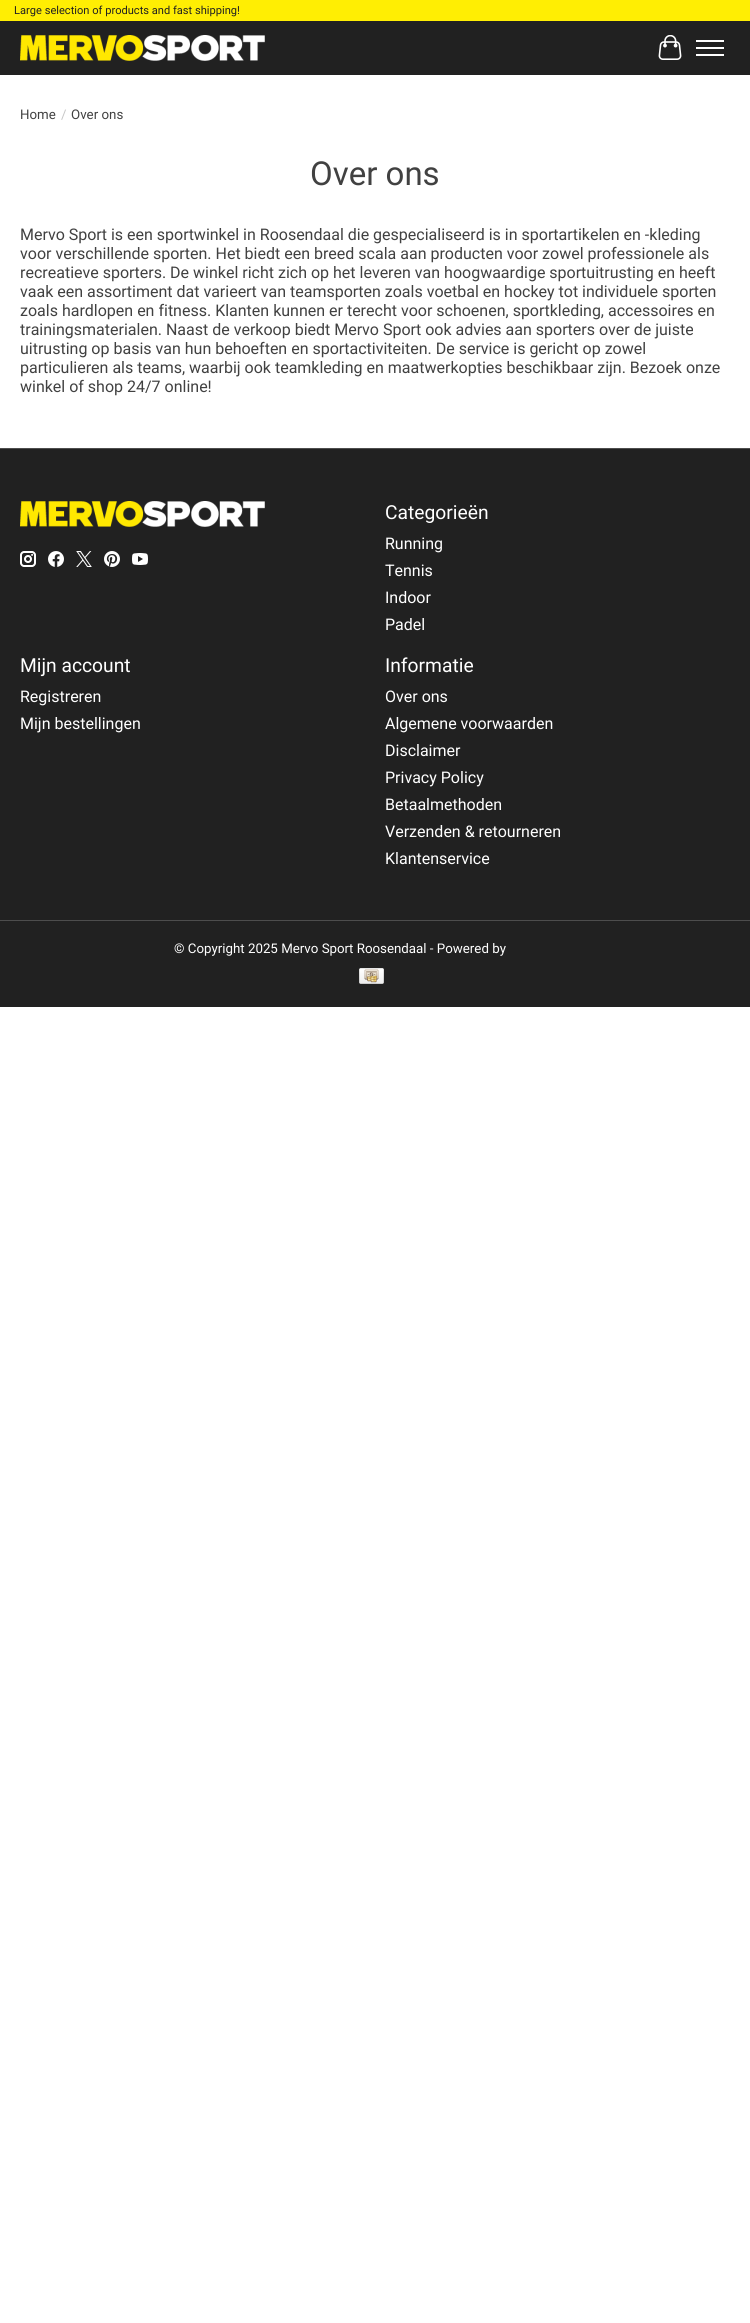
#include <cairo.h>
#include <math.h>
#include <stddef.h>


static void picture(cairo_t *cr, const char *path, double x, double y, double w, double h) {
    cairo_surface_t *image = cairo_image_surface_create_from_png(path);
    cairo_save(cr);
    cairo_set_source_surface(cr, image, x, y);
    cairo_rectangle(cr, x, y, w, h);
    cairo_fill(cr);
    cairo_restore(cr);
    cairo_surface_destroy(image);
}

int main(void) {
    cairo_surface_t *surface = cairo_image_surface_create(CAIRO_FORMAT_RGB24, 750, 2323);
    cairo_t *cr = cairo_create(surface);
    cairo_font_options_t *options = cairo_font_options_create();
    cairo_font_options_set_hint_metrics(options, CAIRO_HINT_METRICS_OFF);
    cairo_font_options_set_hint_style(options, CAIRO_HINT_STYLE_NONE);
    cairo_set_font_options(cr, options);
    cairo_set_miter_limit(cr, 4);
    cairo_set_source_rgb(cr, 1, 1, 1);
    cairo_paint(cr);
    cairo_set_source_rgb(cr, 0.129, 0.129, 0.129);
    cairo_rectangle(cr, 0, 21, 750, 54);
    cairo_fill(cr);
    cairo_set_source_rgb(cr, 1, 0.933, 0.012);
    cairo_rectangle(cr, 0, 0, 750, 21);
    cairo_fill(cr);
    cairo_select_font_face(cr, "Roboto", CAIRO_FONT_SLANT_NORMAL, CAIRO_FONT_WEIGHT_NORMAL);
    cairo_set_font_size(cr, 11.1);
    cairo_set_source_rgb(cr, 0.129, 0.129, 0.129);
    cairo_move_to(cr, 14, 14);
    cairo_show_text(cr, "Large selection of products and fast shipping!");
    picture(cr, "img1.png", 20, 35, 245, 26);
    picture(cr, "img2.png", 658, 35, 24, 25);
    cairo_set_source_rgb(cr, 1, 1, 1);
    cairo_rectangle(cr, 696, 47, 28, 2);
    cairo_fill(cr);
    cairo_rectangle(cr, 696, 40, 28, 2);
    cairo_fill(cr);
    cairo_rectangle(cr, 696, 54, 28, 2);
    cairo_fill(cr);
    cairo_set_font_size(cr, 13.3);
    cairo_set_source_rgb(cr, 0.255, 0.255, 0.255);
    cairo_move_to(cr, 20, 119);
    cairo_show_text(cr, "Home");
    cairo_set_source_rgb(cr, 0.776, 0.776, 0.776);
    cairo_move_to(cr, 61, 119);
    cairo_show_text(cr, "/");
    cairo_set_source_rgb(cr, 0.255, 0.255, 0.255);
    cairo_move_to(cr, 71, 119);
    cairo_show_text(cr, "Over ons");
    cairo_set_font_size(cr, 33);
    cairo_move_to(cr, 310, 185);
    cairo_show_text(cr, "Over ons");
    cairo_set_font_size(cr, 16);
    cairo_move_to(cr, 20, 240);
    cairo_show_text(cr, "Mervo Sport is een sportwinkel in Roosendaal die gespecialiseerd is in sportartikelen en -kleding");
    cairo_move_to(cr, 20, 259);
    cairo_show_text(cr, "voor verschillende sporten. Het biedt een breed scala aan producten voor zowel professionele als");
    cairo_move_to(cr, 20, 278);
    cairo_show_text(cr, "recreatieve sporters. De winkel richt zich op het leveren van hoogwaardige sportuitrusting en heeft");
    cairo_move_to(cr, 20, 297);
    cairo_show_text(cr, "vaak een assortiment dat varieert van teamsporten zoals voetbal en hockey tot individuele sporten");
    cairo_move_to(cr, 20, 316);
    cairo_show_text(cr, "zoals hardlopen en fitness. Klanten kunnen er terecht voor schoenen, sportkleding, accessoires en");
    cairo_move_to(cr, 20, 335);
    cairo_show_text(cr, "trainingsmaterialen. Naast de verkoop biedt Mervo Sport ook advies aan sporters over de juiste");
    cairo_move_to(cr, 20, 354);
    cairo_show_text(cr, "uitrusting op basis van hun behoeften en sportactiviteiten. De service is gericht op zowel");
    cairo_move_to(cr, 20, 373);
    cairo_show_text(cr, "particulieren als teams, waarbij ook teamkleding en maatwerkopties beschikbaar zijn. Bezoek onze");
    cairo_move_to(cr, 20, 392);
    cairo_show_text(cr, "winkel of shop 24/7 online!");
    cairo_set_source_rgb(cr, 0.129, 0.129, 0.129);
    cairo_rectangle(cr, 0, 449, 750, 558);
    cairo_fill(cr);
    cairo_set_source_rgb(cr, 0.302, 0.302, 0.302);
    cairo_rectangle(cr, 0, 448, 750, 1);
    cairo_fill(cr);
    picture(cr, "img1.png", 20, 501, 245, 26);
    picture(cr, "img3.png", 20, 551, 16, 16);
    picture(cr, "img4.png", 48, 551, 16, 16);
    picture(cr, "img5.png", 76, 551, 16, 16);
    picture(cr, "img6.png", 104, 551, 16, 16);
    picture(cr, "img7.png", 132, 553, 16, 12);
    cairo_set_font_size(cr, 19.25);
    cairo_set_source_rgb(cr, 1, 1, 1);
    cairo_move_to(cr, 385, 519);
    cairo_show_text(cr, "Categorieën");
    cairo_set_font_size(cr, 16);
    cairo_move_to(cr, 385, 549);
    cairo_show_text(cr, "Running");
    cairo_move_to(cr, 385, 576);
    cairo_show_text(cr, "Tennis");
    cairo_move_to(cr, 385, 603);
    cairo_show_text(cr, "Indoor");
    cairo_move_to(cr, 385, 630);
    cairo_show_text(cr, "Padel");
    cairo_set_font_size(cr, 19.25);
    cairo_move_to(cr, 20, 672);
    cairo_show_text(cr, "Mijn account");
    cairo_set_font_size(cr, 16);
    cairo_move_to(cr, 20, 702);
    cairo_show_text(cr, "Registreren");
    cairo_move_to(cr, 20, 729);
    cairo_show_text(cr, "Mijn bestellingen");
    cairo_set_font_size(cr, 19.25);
    cairo_move_to(cr, 385, 672);
    cairo_show_text(cr, "Informatie");
    cairo_set_font_size(cr, 16);
    cairo_move_to(cr, 385, 702);
    cairo_show_text(cr, "Over ons");
    cairo_move_to(cr, 385, 729);
    cairo_show_text(cr, "Algemene voorwaarden");
    cairo_move_to(cr, 385, 756);
    cairo_show_text(cr, "Disclaimer");
    cairo_move_to(cr, 385, 783);
    cairo_show_text(cr, "Privacy Policy");
    cairo_move_to(cr, 385, 810);
    cairo_show_text(cr, "Betaalmethoden");
    cairo_move_to(cr, 385, 837);
    cairo_show_text(cr, "Verzenden & retourneren");
    cairo_move_to(cr, 385, 864);
    cairo_show_text(cr, "Klantenservice");
    cairo_set_source_rgb(cr, 0.302, 0.302, 0.302);
    cairo_rectangle(cr, 0, 920, 750, 1);
    cairo_fill(cr);
    cairo_set_font_size(cr, 13.3);
    cairo_set_source_rgb(cr, 1, 1, 1);
    cairo_move_to(cr, 174, 953);
    cairo_show_text(cr, "© Copyright 2025 Mervo Sport Roosendaal - Powered by");
    picture(cr, "img8.png", 359, 968, 25, 16);
    cairo_surface_write_to_png(surface, "page.png");
    cairo_font_options_destroy(options);
    cairo_destroy(cr);
    cairo_surface_destroy(surface);
    return 0;
}
